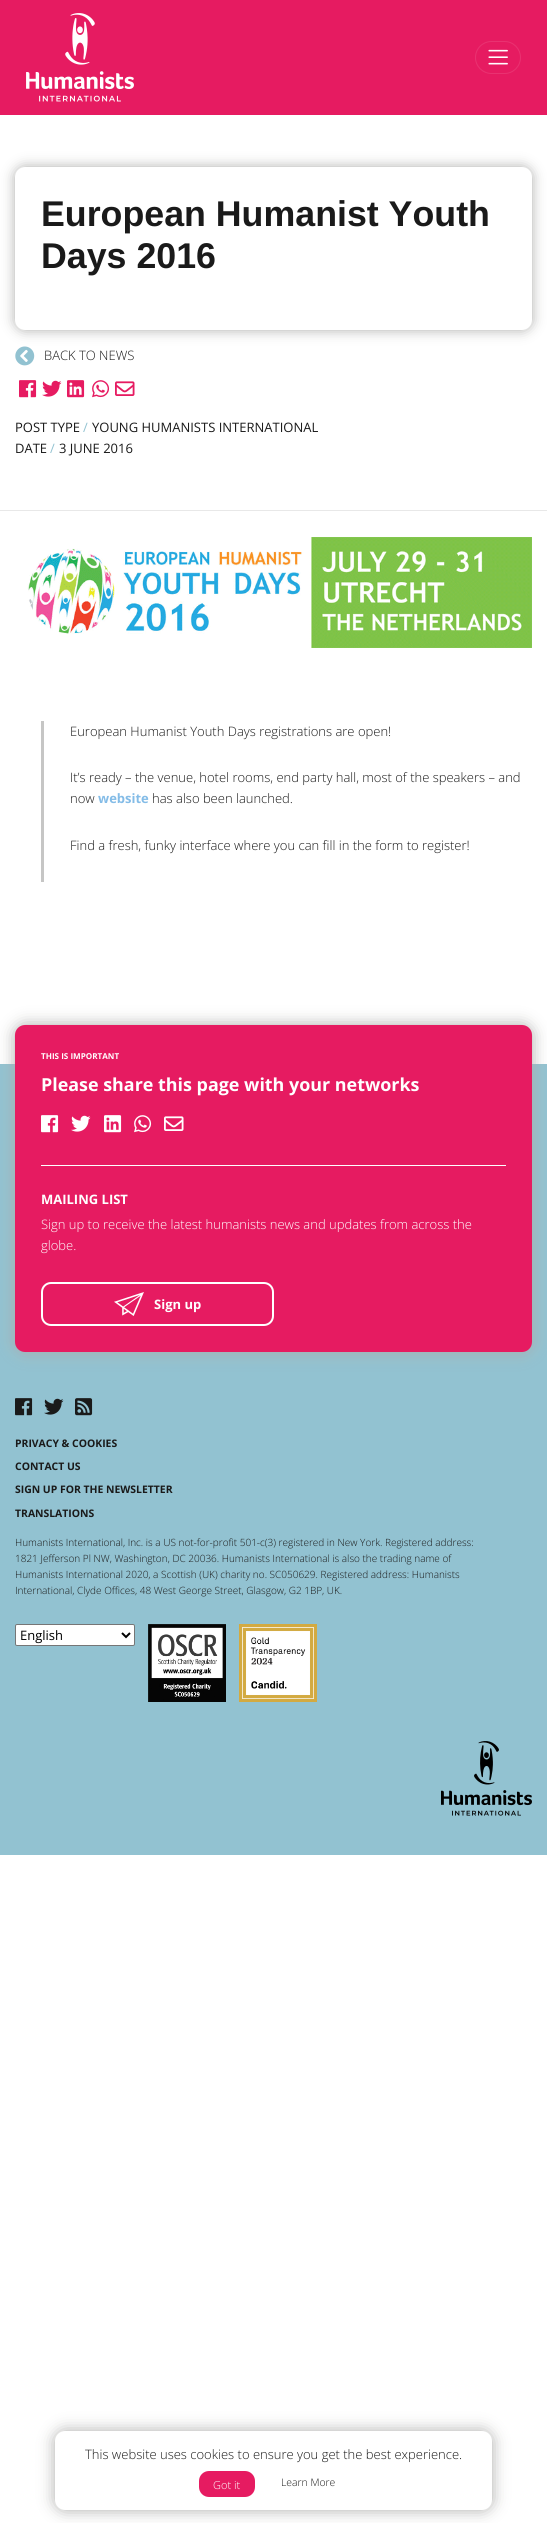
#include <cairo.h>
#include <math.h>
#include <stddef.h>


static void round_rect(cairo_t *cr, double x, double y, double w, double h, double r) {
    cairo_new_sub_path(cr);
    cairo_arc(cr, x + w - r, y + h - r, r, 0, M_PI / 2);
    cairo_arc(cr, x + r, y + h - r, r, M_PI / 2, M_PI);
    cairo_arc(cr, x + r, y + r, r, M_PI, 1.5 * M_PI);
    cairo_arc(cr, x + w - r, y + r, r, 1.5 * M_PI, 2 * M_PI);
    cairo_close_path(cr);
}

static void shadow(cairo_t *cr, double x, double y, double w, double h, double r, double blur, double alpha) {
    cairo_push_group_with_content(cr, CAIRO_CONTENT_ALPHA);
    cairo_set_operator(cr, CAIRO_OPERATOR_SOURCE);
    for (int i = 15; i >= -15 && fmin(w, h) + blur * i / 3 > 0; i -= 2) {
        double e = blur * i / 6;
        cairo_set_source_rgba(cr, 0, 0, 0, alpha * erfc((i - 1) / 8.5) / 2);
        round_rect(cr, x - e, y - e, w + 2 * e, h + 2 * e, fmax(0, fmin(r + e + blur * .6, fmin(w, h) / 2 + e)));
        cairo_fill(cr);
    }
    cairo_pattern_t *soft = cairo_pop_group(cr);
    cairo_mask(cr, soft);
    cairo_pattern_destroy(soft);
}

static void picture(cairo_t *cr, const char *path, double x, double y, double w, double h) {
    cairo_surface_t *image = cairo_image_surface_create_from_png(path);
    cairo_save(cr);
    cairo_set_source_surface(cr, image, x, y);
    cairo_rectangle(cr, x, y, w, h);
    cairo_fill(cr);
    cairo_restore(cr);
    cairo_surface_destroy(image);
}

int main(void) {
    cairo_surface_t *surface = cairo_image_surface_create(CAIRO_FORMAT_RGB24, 547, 2523);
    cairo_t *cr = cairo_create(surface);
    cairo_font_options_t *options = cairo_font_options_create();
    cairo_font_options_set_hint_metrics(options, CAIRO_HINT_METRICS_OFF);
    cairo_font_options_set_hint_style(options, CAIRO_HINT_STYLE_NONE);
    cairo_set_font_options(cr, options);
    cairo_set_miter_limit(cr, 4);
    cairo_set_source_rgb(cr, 1, 1, 1);
    cairo_paint(cr);
    cairo_set_source_rgb(cr, 0.902, 0.106, 0.38);
    cairo_rectangle(cr, 0, 0, 547, 115);
    cairo_fill(cr);
    picture(cr, "img1.png", 26, 13, 108, 89);
    round_rect(cr, 475.5, 41.5, 45, 32, 16);
    cairo_set_source_rgb(cr, 0.914, 0.196, 0.443);
    cairo_set_line_width(cr, 1);
    cairo_stroke(cr);
    picture(cr, "img2.png", 488, 49, 20, 16);
    cairo_set_source_rgb(cr, 0.91, 0.91, 0.91);
    cairo_rectangle(cr, 0, 510, 547, 1);
    cairo_fill(cr);
    cairo_set_source_rgb(cr, 0.678, 0.678, 0.671);
    shadow(cr, 15, 167, 517, 163, 10, 6.5, 1);
    cairo_set_source_rgb(cr, 1, 1, 1);
    round_rect(cr, 15, 167, 517, 163, 10);
    cairo_fill(cr);
    cairo_select_font_face(cr, "Liberation Sans", CAIRO_FONT_SLANT_NORMAL, CAIRO_FONT_WEIGHT_BOLD);
    cairo_set_font_size(cr, 35.75);
    cairo_set_source_rgb(cr, 0.102, 0.102, 0.102);
    cairo_move_to(cr, 41, 226);
    cairo_show_text(cr, "European Humanist Youth");
    cairo_move_to(cr, 41, 268);
    cairo_show_text(cr, "Days 2016");
    picture(cr, "img3.png", 15, 346, 20, 20);
    cairo_select_font_face(cr, "Open Sans Light", CAIRO_FONT_SLANT_NORMAL, CAIRO_FONT_WEIGHT_NORMAL);
    cairo_set_font_size(cr, 13);
    cairo_move_to(cr, 44, 360);
    cairo_show_text(cr, "BACK TO NEWS");
    picture(cr, "img4.png", 19, 380, 18, 18);
    picture(cr, "img5.png", 42, 380, 20, 17);
    picture(cr, "img6.png", 67, 380, 18, 18);
    picture(cr, "img7.png", 92, 380, 18, 18);
    picture(cr, "img8.png", 115, 381, 20, 15);
    cairo_select_font_face(cr, "Open Sans", CAIRO_FONT_SLANT_NORMAL, CAIRO_FONT_WEIGHT_NORMAL);
    cairo_move_to(cr, 15, 432);
    cairo_show_text(cr, "POST TYPE");
    cairo_set_source_rgb(cr, 0.573, 0.761, 0.82);
    cairo_move_to(cr, 83, 432);
    cairo_show_text(cr, "/");
    cairo_set_source_rgb(cr, 0.102, 0.102, 0.102);
    cairo_move_to(cr, 92, 432);
    cairo_show_text(cr, "YOUNG HUMANISTS INTERNATIONAL");
    cairo_move_to(cr, 15, 453);
    cairo_show_text(cr, "DATE");
    cairo_set_source_rgb(cr, 0.573, 0.761, 0.82);
    cairo_move_to(cr, 50, 453);
    cairo_show_text(cr, "/");
    cairo_set_source_rgb(cr, 0.102, 0.102, 0.102);
    cairo_move_to(cr, 59, 453);
    cairo_show_text(cr, "3 JUNE 2016");
    picture(cr, "img9.png", 27, 537, 505, 111);
    cairo_set_source_rgb(cr, 0.776, 0.776, 0.773);
    cairo_rectangle(cr, 41, 721, 3, 161);
    cairo_fill(cr);
    cairo_select_font_face(cr, "Open Sans Light", CAIRO_FONT_SLANT_NORMAL, CAIRO_FONT_WEIGHT_NORMAL);
    cairo_set_source_rgb(cr, 0.102, 0.102, 0.102);
    cairo_move_to(cr, 70, 736);
    cairo_show_text(cr, "European Humanist Youth Days registrations are open!");
    cairo_move_to(cr, 70, 782);
    cairo_show_text(cr, "It’s ready – the venue, hotel rooms, end party hall, most of the speakers – and");
    cairo_move_to(cr, 70, 803);
    cairo_show_text(cr, "now");
    cairo_select_font_face(cr, "Open Sans", CAIRO_FONT_SLANT_NORMAL, CAIRO_FONT_WEIGHT_BOLD);
    cairo_set_source_rgb(cr, 0.518, 0.737, 0.906);
    cairo_move_to(cr, 98, 803);
    cairo_show_text(cr, "website");
    cairo_select_font_face(cr, "Open Sans Light", CAIRO_FONT_SLANT_NORMAL, CAIRO_FONT_WEIGHT_NORMAL);
    cairo_set_source_rgb(cr, 0.102, 0.102, 0.102);
    cairo_move_to(cr, 152, 803);
    cairo_show_text(cr, "has also been launched.");
    cairo_move_to(cr, 70, 850);
    cairo_show_text(cr, "Find a fresh, funky interface where you can fill in the form to register!");
    cairo_set_source_rgb(cr, 0.573, 0.761, 0.82);
    cairo_rectangle(cr, 0, 1064, 547, 791);
    cairo_fill(cr);
    cairo_set_source_rgb(cr, 0.678, 0.678, 0.671);
    shadow(cr, 15, 1025, 517, 327, 10, 8, 1);
    cairo_set_source_rgb(cr, 0.902, 0.106, 0.38);
    round_rect(cr, 15, 1025, 517, 327, 10);
    cairo_fill(cr);
    cairo_select_font_face(cr, "Open Sans", CAIRO_FONT_SLANT_NORMAL, CAIRO_FONT_WEIGHT_BOLD);
    cairo_set_font_size(cr, 8.1);
    cairo_set_source_rgb(cr, 1, 1, 1);
    cairo_move_to(cr, 41, 1059);
    cairo_show_text(cr, "THIS IS IMPORTANT");
    cairo_set_font_size(cr, 17.9);
    cairo_move_to(cr, 41, 1091);
    cairo_show_text(cr, "Please share this page with your networks");
    picture(cr, "img10.png", 41, 1115, 18, 18);
    picture(cr, "img11.png", 71, 1115, 20, 17);
    picture(cr, "img12.png", 104, 1115, 18, 18);
    picture(cr, "img13.png", 134, 1115, 18, 18);
    picture(cr, "img14.png", 164, 1116, 20, 15);
    cairo_rectangle(cr, 41, 1165, 465, 1);
    cairo_fill(cr);
    cairo_set_font_size(cr, 13);
    cairo_move_to(cr, 41, 1204);
    cairo_show_text(cr, "MAILING LIST");
    cairo_select_font_face(cr, "Open Sans Light", CAIRO_FONT_SLANT_NORMAL, CAIRO_FONT_WEIGHT_NORMAL);
    cairo_move_to(cr, 41, 1229);
    cairo_show_text(cr, "Sign up to receive the latest humanists news and updates from across the");
    cairo_move_to(cr, 41, 1250);
    cairo_show_text(cr, "globe.");
    round_rect(cr, 42, 1283, 231, 42, 9);
    cairo_set_line_width(cr, 2);
    cairo_stroke(cr);
    picture(cr, "img15.png", 114, 1292, 30, 24);
    cairo_select_font_face(cr, "Open Sans", CAIRO_FONT_SLANT_NORMAL, CAIRO_FONT_WEIGHT_BOLD);
    cairo_move_to(cr, 154, 1309);
    cairo_show_text(cr, "Sign up");
    picture(cr, "img16.png", 15, 1398, 18, 18);
    picture(cr, "img17.png", 44, 1398, 20, 17);
    picture(cr, "img18.png", 75, 1398, 18, 18);
    cairo_set_font_size(cr, 10.4);
    cairo_set_source_rgb(cr, 0.102, 0.102, 0.102);
    cairo_move_to(cr, 15, 1447);
    cairo_show_text(cr, "PRIVACY & COOKIES");
    cairo_move_to(cr, 15, 1470);
    cairo_show_text(cr, "CONTACT US");
    cairo_move_to(cr, 15, 1493);
    cairo_show_text(cr, "SIGN UP FOR THE NEWSLETTER");
    cairo_move_to(cr, 15, 1517);
    cairo_show_text(cr, "TRANSLATIONS");
    cairo_select_font_face(cr, "Open Sans Light", CAIRO_FONT_SLANT_NORMAL, CAIRO_FONT_WEIGHT_NORMAL);
    cairo_set_font_size(cr, 10);
    cairo_move_to(cr, 15, 1546);
    cairo_show_text(cr, "Humanists International, Inc. is a US not-for-profit 501-c(3) registered in New York. Registered address:");
    cairo_move_to(cr, 15, 1562);
    cairo_show_text(cr, "1821 Jefferson Pl NW, Washington, DC 20036. Humanists International is also the trading name of");
    cairo_move_to(cr, 15, 1578);
    cairo_show_text(cr, "Humanists International 2020, a Scottish (UK) charity no. SC050629. Registered address: Humanists");
    cairo_move_to(cr, 15, 1594);
    cairo_show_text(cr, "International, Clyde Offices, 48 West George Street, Glasgow, G2 1BP, UK.");
    cairo_set_source_rgb(cr, 1, 1, 1);
    round_rect(cr, 15.5, 1624.5, 119, 21, 1.5);
    cairo_fill_preserve(cr);
    cairo_set_source_rgb(cr, 0.463, 0.463, 0.463);
    cairo_set_line_width(cr, 1);
    cairo_stroke(cr);
    cairo_new_path(cr);
    cairo_move_to(cr, 122, 1633);
    cairo_line_to(cr, 126, 1637);
    cairo_line_to(cr, 130, 1633);
    cairo_set_source_rgb(cr, 0, 0, 0);
    cairo_set_line_width(cr, 2);
    cairo_stroke(cr);
    cairo_select_font_face(cr, "Open Sans", CAIRO_FONT_SLANT_NORMAL, CAIRO_FONT_WEIGHT_NORMAL);
    cairo_set_font_size(cr, 13);
    cairo_move_to(cr, 20, 1640);
    cairo_show_text(cr, "English");
    picture(cr, "img19.png", 148, 1624, 78, 78);
    picture(cr, "img20.png", 239, 1624, 78, 78);
    picture(cr, "img21.png", 441, 1741, 91, 75);
    cairo_set_source_rgb(cr, 0.678, 0.678, 0.671);
    shadow(cr, 55, 2431, 437, 79, 10, 8, 1);
    cairo_set_source_rgb(cr, 1, 1, 1);
    round_rect(cr, 55, 2431, 437, 79, 10);
    cairo_fill(cr);
    cairo_select_font_face(cr, "Open Sans Light", CAIRO_FONT_SLANT_NORMAL, CAIRO_FONT_WEIGHT_NORMAL);
    cairo_set_source_rgb(cr, 0.102, 0.102, 0.102);
    cairo_move_to(cr, 85, 2459);
    cairo_show_text(cr, "This website uses cookies to ensure you get the best experience.");
    cairo_set_source_rgb(cr, 0.902, 0.106, 0.38);
    round_rect(cr, 199, 2471, 56, 26, 10);
    cairo_fill(cr);
    cairo_set_font_size(cr, 11);
    cairo_set_source_rgb(cr, 1, 1, 1);
    cairo_move_to(cr, 213, 2489);
    cairo_show_text(cr, "Got it");
    cairo_set_font_size(cr, 10.4);
    cairo_set_source_rgb(cr, 0.102, 0.102, 0.102);
    cairo_move_to(cr, 281, 2486);
    cairo_show_text(cr, "Learn More");
    cairo_surface_write_to_png(surface, "page.png");
    cairo_font_options_destroy(options);
    cairo_destroy(cr);
    cairo_surface_destroy(surface);
    return 0;
}
